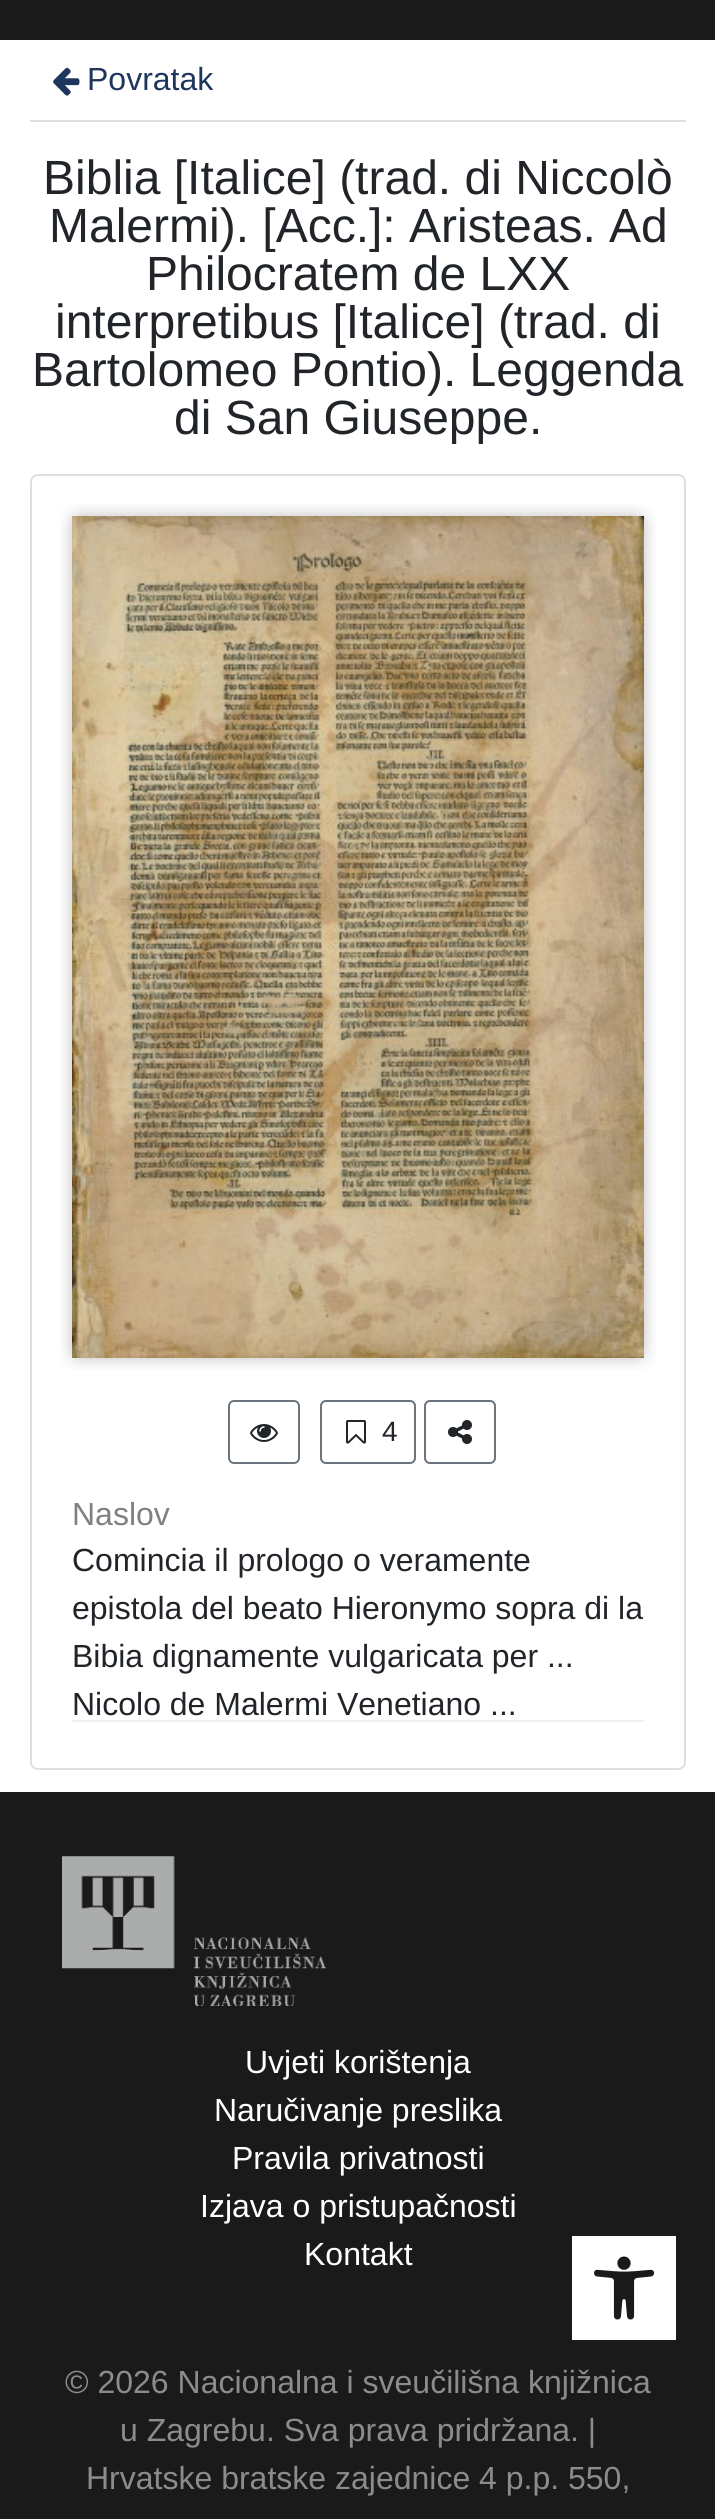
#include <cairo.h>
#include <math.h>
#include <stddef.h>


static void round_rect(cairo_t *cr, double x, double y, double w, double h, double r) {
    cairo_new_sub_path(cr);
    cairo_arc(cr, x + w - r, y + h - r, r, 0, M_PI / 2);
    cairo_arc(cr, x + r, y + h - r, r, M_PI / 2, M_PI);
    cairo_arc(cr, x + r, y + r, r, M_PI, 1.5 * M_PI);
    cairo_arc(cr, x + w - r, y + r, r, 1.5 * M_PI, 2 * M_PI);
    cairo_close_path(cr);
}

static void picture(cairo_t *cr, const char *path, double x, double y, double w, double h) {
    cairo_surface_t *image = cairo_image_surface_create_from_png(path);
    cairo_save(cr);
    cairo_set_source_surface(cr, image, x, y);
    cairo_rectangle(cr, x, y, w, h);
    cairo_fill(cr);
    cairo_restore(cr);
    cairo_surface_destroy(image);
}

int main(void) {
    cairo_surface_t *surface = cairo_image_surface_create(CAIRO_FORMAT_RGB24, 715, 2519);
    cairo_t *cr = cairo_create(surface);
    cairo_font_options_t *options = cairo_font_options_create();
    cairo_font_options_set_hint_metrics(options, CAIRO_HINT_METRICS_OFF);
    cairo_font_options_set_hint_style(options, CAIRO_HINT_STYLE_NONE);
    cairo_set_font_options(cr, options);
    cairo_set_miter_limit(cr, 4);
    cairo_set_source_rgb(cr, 1, 1, 1);
    cairo_paint(cr);
    cairo_set_source_rgb(cr, 0.102, 0.102, 0.102);
    cairo_rectangle(cr, 0, 0, 715, 40);
    cairo_fill(cr);
    cairo_set_source_rgb(cr, 0.875, 0.875, 0.875);
    cairo_rectangle(cr, 30, 120, 656, 2);
    cairo_fill(cr);
    picture(cr, "img1.png", 53, 67, 27, 29);
    cairo_select_font_face(cr, "Liberation Sans", CAIRO_FONT_SLANT_NORMAL, CAIRO_FONT_WEIGHT_NORMAL);
    cairo_set_font_size(cr, 32);
    cairo_set_source_rgb(cr, 0.122, 0.212, 0.361);
    cairo_move_to(cr, 87, 90);
    cairo_show_text(cr, "Povratak");
    cairo_set_font_size(cr, 48);
    cairo_set_source_rgb(cr, 0.129, 0.145, 0.161);
    cairo_move_to(cr, 43, 194);
    cairo_show_text(cr, "Biblia [Italice] (trad. di Niccolò");
    cairo_move_to(cr, 49, 242);
    cairo_show_text(cr, "Malermi). [Acc.]: Aristeas. Ad");
    cairo_move_to(cr, 146, 290);
    cairo_show_text(cr, "Philocratem de LXX");
    cairo_move_to(cr, 55, 338);
    cairo_show_text(cr, "interpretibus [Italice] (trad. di");
    cairo_move_to(cr, 32, 386);
    cairo_show_text(cr, "Bartolomeo Pontio). Leggenda");
    cairo_move_to(cr, 174, 434);
    cairo_show_text(cr, "di San Giuseppe.");
    round_rect(cr, 31, 475, 654, 1294, 7);
    cairo_set_source_rgb(cr, 0.875, 0.875, 0.875);
    cairo_stroke(cr);
    picture(cr, "img2.png", 60, 504, 596, 866);
    round_rect(cr, 229, 1401, 70, 62, 5);
    cairo_set_source_rgb(cr, 0.424, 0.459, 0.49);
    cairo_stroke(cr);
    picture(cr, "img3.png", 250, 1424, 28, 18);
    round_rect(cr, 321, 1401, 94, 62, 5);
    cairo_stroke(cr);
    picture(cr, "img4.png", 346, 1420, 20, 24);
    cairo_set_font_size(cr, 28);
    cairo_set_source_rgb(cr, 0.129, 0.145, 0.161);
    cairo_move_to(cr, 382, 1441);
    cairo_show_text(cr, "4");
    round_rect(cr, 425, 1401, 70, 62, 5);
    cairo_set_source_rgb(cr, 0.424, 0.459, 0.49);
    cairo_stroke(cr);
    picture(cr, "img5.png", 448, 1420, 24, 24);
    cairo_set_font_size(cr, 32);
    cairo_set_source_rgb(cr, 0.502, 0.502, 0.502);
    cairo_move_to(cr, 72, 1525);
    cairo_show_text(cr, "Naslov");
    cairo_set_source_rgb(cr, 0.129, 0.145, 0.161);
    cairo_move_to(cr, 72, 1571);
    cairo_show_text(cr, "Comincia il prologo o veramente");
    cairo_move_to(cr, 72, 1619);
    cairo_show_text(cr, "epistola del beato Hieronymo sopra di la");
    cairo_move_to(cr, 72, 1667);
    cairo_show_text(cr, "Bibia dignamente vulgaricata per ...");
    cairo_move_to(cr, 72, 1715);
    cairo_show_text(cr, "Nicolo de Malermi Venetiano ...");
    cairo_set_source_rgb(cr, 0.941, 0.941, 0.941);
    cairo_rectangle(cr, 72, 1720, 572, 2);
    cairo_fill(cr);
    cairo_set_source_rgb(cr, 0.102, 0.102, 0.102);
    cairo_rectangle(cr, 0, 1792, 715, 727);
    cairo_fill(cr);
    picture(cr, "img6.png", 62, 1856, 264, 150);
    cairo_set_source_rgb(cr, 1, 1, 1);
    cairo_move_to(cr, 245, 2073);
    cairo_show_text(cr, "Uvjeti korištenja");
    cairo_move_to(cr, 214, 2121);
    cairo_show_text(cr, "Naručivanje preslika");
    cairo_move_to(cr, 232, 2169);
    cairo_show_text(cr, "Pravila privatnosti");
    cairo_move_to(cr, 200, 2217);
    cairo_show_text(cr, "Izjava o pristupačnosti");
    cairo_move_to(cr, 304, 2265);
    cairo_show_text(cr, "Kontakt");
    cairo_set_source_rgb(cr, 0.545, 0.549, 0.553);
    cairo_move_to(cr, 65, 2393);
    cairo_show_text(cr, "© 2026 Nacionalna i sveučilišna knjižnica");
    cairo_move_to(cr, 120, 2441);
    cairo_show_text(cr, "u Zagrebu. Sva prava pridržana. |");
    cairo_move_to(cr, 86, 2489);
    cairo_show_text(cr, "Hrvatske bratske zajednice 4 p.p. 550,");
    cairo_set_source_rgb(cr, 1, 1, 1);
    cairo_rectangle(cr, 572, 2236, 104, 104);
    cairo_fill(cr);
    picture(cr, "img7.png", 594, 2256, 61, 64);
    cairo_surface_write_to_png(surface, "page.png");
    cairo_font_options_destroy(options);
    cairo_destroy(cr);
    cairo_surface_destroy(surface);
    return 0;
}
